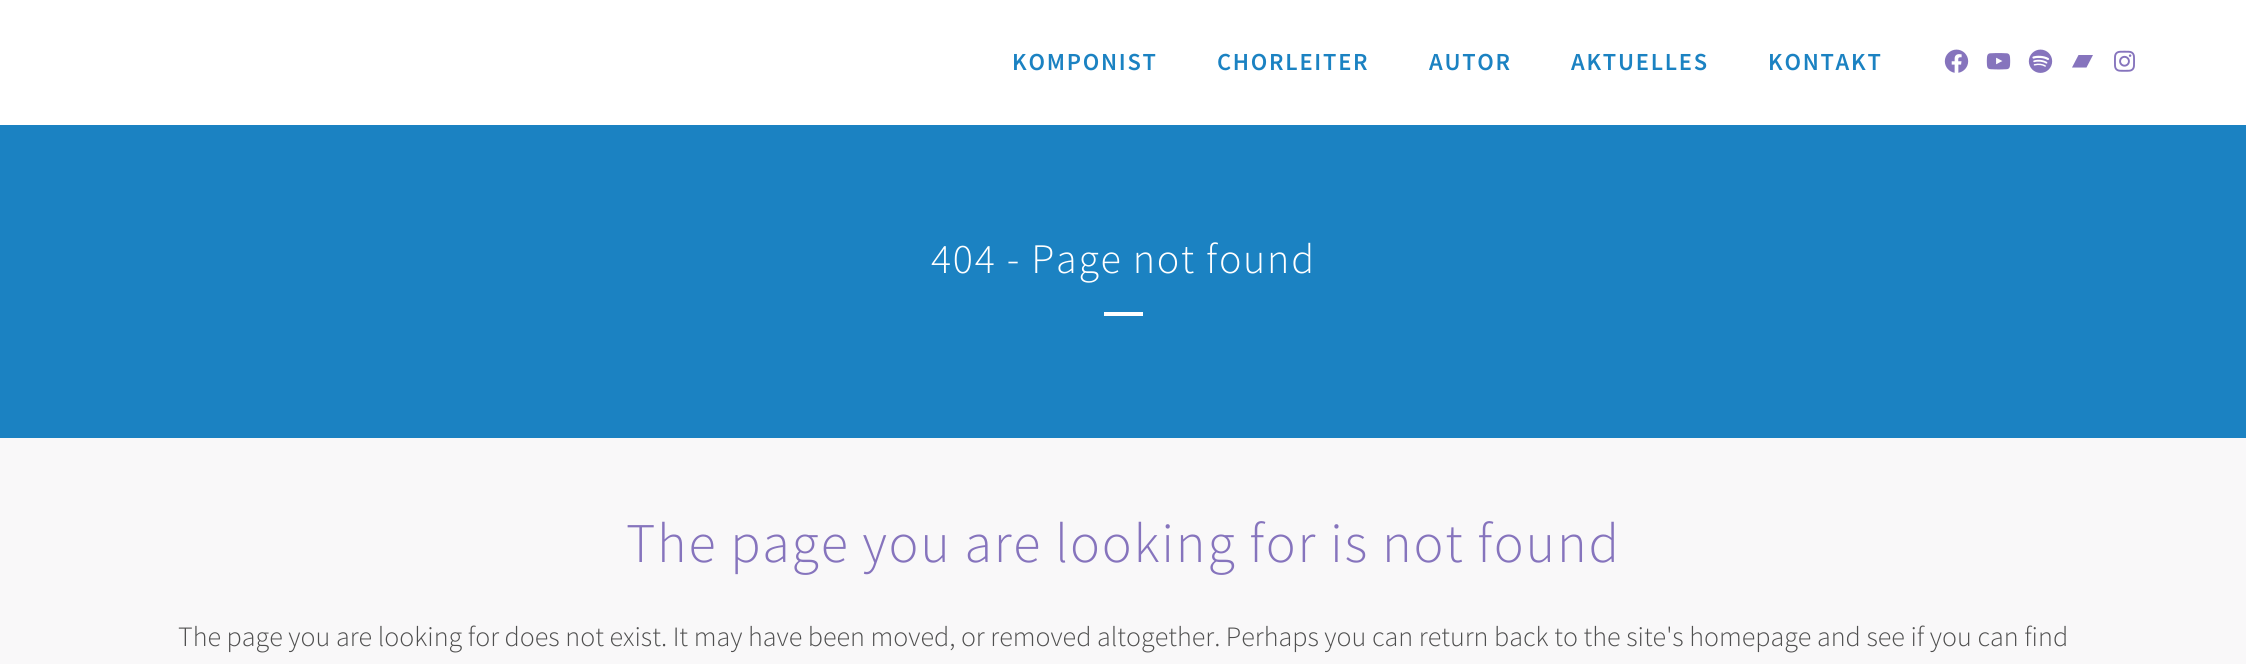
#include <cairo.h>
#include <math.h>
#include <stddef.h>


static void spaced_text(cairo_t *cr, double x, double y, const char *s, double letter, double word) {
    cairo_move_to(cr, x, y);
    while (*s) {
        char ch[5] = {0};
        int n = 0;
        do ch[n++] = *s++; while ((*s & 0xC0) == 0x80);
        cairo_show_text(cr, ch);
        cairo_rel_move_to(cr, letter + word * (*ch == ' '), 0);
    }
}

static void picture(cairo_t *cr, const char *path, double x, double y, double w, double h) {
    cairo_surface_t *image = cairo_image_surface_create_from_png(path);
    cairo_save(cr);
    cairo_set_source_surface(cr, image, x, y);
    cairo_rectangle(cr, x, y, w, h);
    cairo_fill(cr);
    cairo_restore(cr);
    cairo_surface_destroy(image);
}

int main(void) {
    cairo_surface_t *surface = cairo_image_surface_create(CAIRO_FORMAT_RGB24, 2246, 664);
    cairo_t *cr = cairo_create(surface);
    cairo_font_options_t *options = cairo_font_options_create();
    cairo_font_options_set_hint_metrics(options, CAIRO_HINT_METRICS_OFF);
    cairo_font_options_set_hint_style(options, CAIRO_HINT_STYLE_NONE);
    cairo_set_font_options(cr, options);
    cairo_set_miter_limit(cr, 4);
    cairo_set_source_rgb(cr, 0.976, 0.969, 0.973);
    cairo_paint(cr);
    cairo_set_source_rgb(cr, 1, 1, 1);
    cairo_rectangle(cr, 0, 0, 2246, 125);
    cairo_fill(cr);
    cairo_select_font_face(cr, "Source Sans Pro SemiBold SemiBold", CAIRO_FONT_SLANT_NORMAL, CAIRO_FONT_WEIGHT_NORMAL);
    cairo_set_font_size(cr, 24.5);
    cairo_set_source_rgb(cr, 0.106, 0.51, 0.761);
    spaced_text(cr, 1012, 70, "KOMPONIST", 1.75, 0);
    spaced_text(cr, 1217, 70, "CHORLEITER", 1.75, 0);
    spaced_text(cr, 1429, 70, "AUTOR", 1.75, 0);
    spaced_text(cr, 1571, 70, "AKTUELLES", 1.75, 0);
    spaced_text(cr, 1768, 70, "KONTAKT", 1.75, 0);
    picture(cr, "img1.png", 1944, 49, 25, 24);
    picture(cr, "img2.png", 1986, 53, 25, 17);
    picture(cr, "img3.png", 2028, 49, 25, 24);
    cairo_set_source_rgb(cr, 0.525, 0.455, 0.741);
    cairo_new_path(cr);
    cairo_move_to(cr, 2086.5, 67.5);
    cairo_line_to(cr, 2072, 67.5);
    cairo_line_to(cr, 2078.5, 55);
    cairo_line_to(cr, 2093, 55);
    cairo_line_to(cr, 2086.5, 67.5);
    cairo_fill(cr);
    picture(cr, "img4.png", 2114, 50, 21, 22);
    cairo_set_source_rgb(cr, 0.106, 0.51, 0.761);
    cairo_rectangle(cr, 0, 125, 2246, 313);
    cairo_fill(cr);
    cairo_select_font_face(cr, "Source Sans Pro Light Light", CAIRO_FONT_SLANT_NORMAL, CAIRO_FONT_WEIGHT_NORMAL);
    cairo_set_font_size(cr, 42);
    cairo_set_source_rgb(cr, 1, 1, 1);
    spaced_text(cr, 931, 273, "404 - Page not found", 1.75, 0);
    cairo_rectangle(cr, 1104, 312, 39, 4);
    cairo_fill(cr);
    cairo_set_font_size(cr, 56);
    cairo_set_source_rgb(cr, 0.525, 0.455, 0.741);
    spaced_text(cr, 626, 562, "The page you are looking for is not found", 1.75, 0);
    cairo_set_font_size(cr, 28);
    cairo_set_source_rgb(cr, 0.31, 0.31, 0.31);
    cairo_move_to(cr, 178, 646);
    cairo_show_text(cr, "The page you are looking for does not exist. It may have been moved, or removed altogether. Perhaps you can return back to the site's homepage and see if you can find");
    cairo_surface_write_to_png(surface, "page.png");
    cairo_font_options_destroy(options);
    cairo_destroy(cr);
    cairo_surface_destroy(surface);
    return 0;
}
